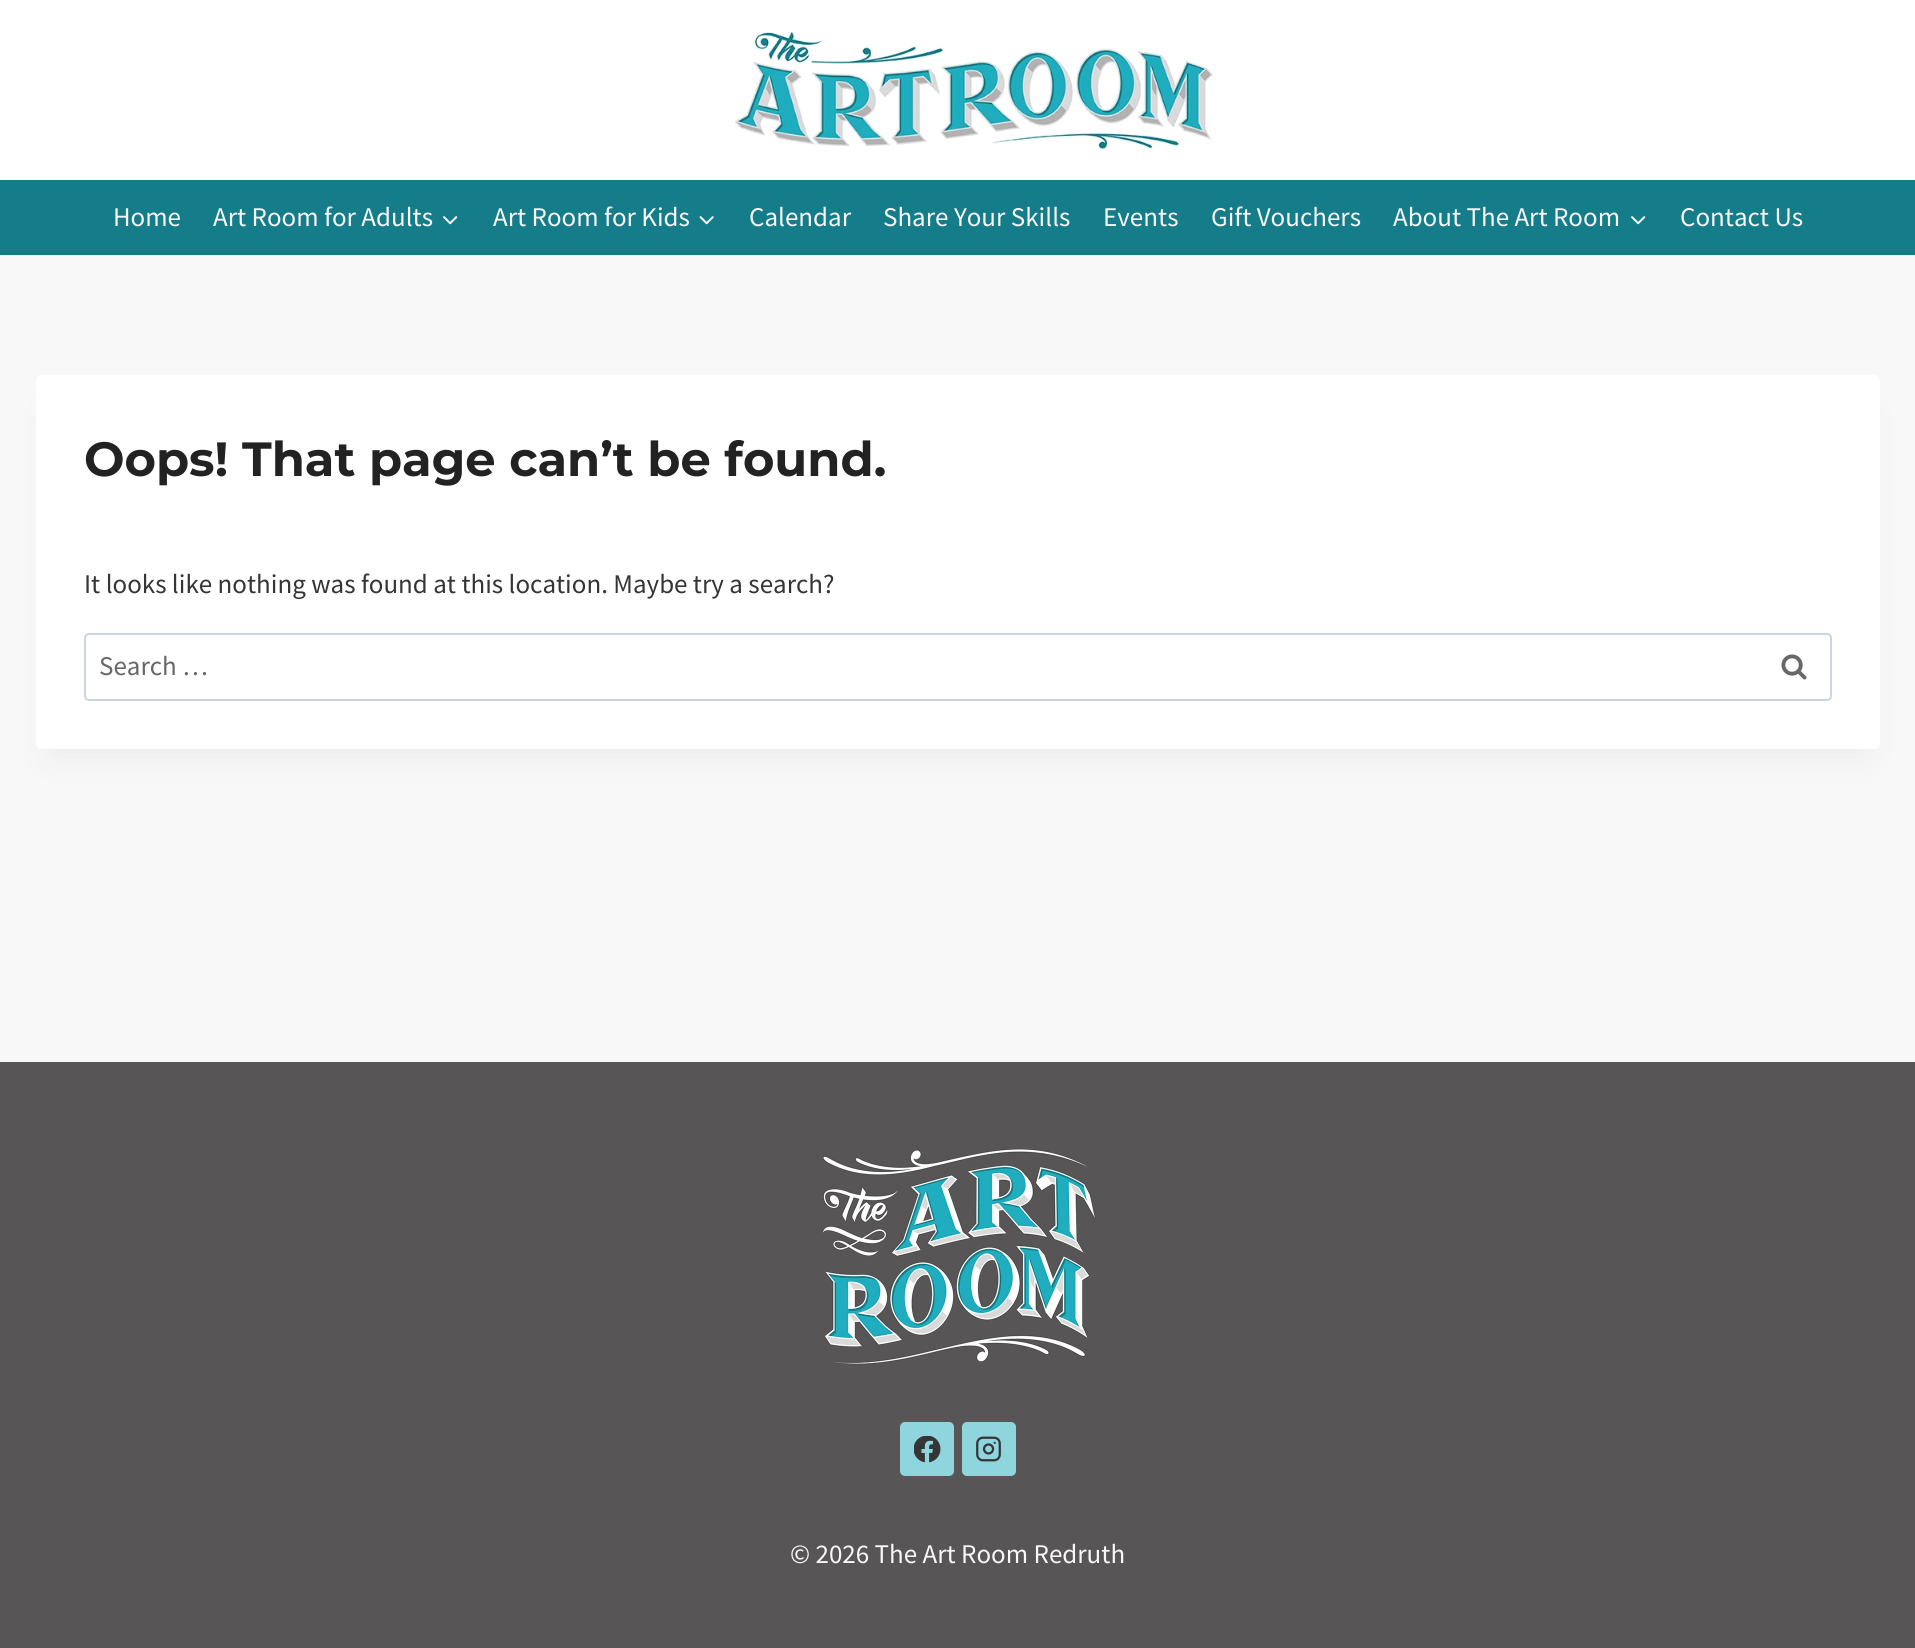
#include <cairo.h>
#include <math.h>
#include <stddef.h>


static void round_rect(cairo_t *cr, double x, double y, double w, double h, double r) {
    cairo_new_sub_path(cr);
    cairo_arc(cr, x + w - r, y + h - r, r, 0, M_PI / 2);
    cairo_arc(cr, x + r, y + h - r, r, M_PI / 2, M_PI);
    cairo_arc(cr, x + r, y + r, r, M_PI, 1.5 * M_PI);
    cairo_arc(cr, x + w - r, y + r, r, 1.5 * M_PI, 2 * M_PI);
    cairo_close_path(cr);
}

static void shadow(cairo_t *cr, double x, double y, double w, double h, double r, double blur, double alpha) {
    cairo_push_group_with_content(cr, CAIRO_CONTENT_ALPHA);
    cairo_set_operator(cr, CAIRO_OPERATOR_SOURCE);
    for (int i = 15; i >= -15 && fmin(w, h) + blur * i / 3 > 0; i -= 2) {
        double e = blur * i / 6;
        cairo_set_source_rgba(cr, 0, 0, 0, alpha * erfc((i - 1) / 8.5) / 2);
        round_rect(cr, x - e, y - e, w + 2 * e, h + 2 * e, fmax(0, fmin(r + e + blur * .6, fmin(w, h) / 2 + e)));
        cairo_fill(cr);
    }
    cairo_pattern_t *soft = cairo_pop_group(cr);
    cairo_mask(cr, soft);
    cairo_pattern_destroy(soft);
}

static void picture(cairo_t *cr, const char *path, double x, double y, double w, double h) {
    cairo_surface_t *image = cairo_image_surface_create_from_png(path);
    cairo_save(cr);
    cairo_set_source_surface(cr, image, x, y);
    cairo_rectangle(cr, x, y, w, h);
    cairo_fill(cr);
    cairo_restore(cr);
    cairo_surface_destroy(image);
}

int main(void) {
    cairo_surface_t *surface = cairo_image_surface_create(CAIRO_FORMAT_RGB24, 1915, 1648);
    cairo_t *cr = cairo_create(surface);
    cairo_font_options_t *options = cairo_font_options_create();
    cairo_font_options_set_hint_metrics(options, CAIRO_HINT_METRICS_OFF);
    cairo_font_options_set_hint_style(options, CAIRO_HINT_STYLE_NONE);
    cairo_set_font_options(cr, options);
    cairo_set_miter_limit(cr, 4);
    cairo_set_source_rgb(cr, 0.969, 0.969, 0.969);
    cairo_paint(cr);
    cairo_set_source_rgb(cr, 1, 1, 1);
    cairo_rectangle(cr, 0, 0, 1915, 180);
    cairo_fill(cr);
    picture(cr, "img1.png", 735, 31, 478, 118);
    cairo_set_source_rgb(cr, 0.082, 0.49, 0.537);
    cairo_rectangle(cr, 0, 180, 1915, 75);
    cairo_fill(cr);
    cairo_select_font_face(cr, "Source Sans Pro", CAIRO_FONT_SLANT_NORMAL, CAIRO_FONT_WEIGHT_NORMAL);
    cairo_set_font_size(cr, 27);
    cairo_set_source_rgb(cr, 0.969, 0.969, 0.969);
    cairo_move_to(cr, 113, 226);
    cairo_show_text(cr, "Home");
    cairo_move_to(cr, 213, 226);
    cairo_show_text(cr, "Art Room for Adults");
    picture(cr, "img2.png", 443, 216, 15, 9);
    cairo_move_to(cr, 493, 226);
    cairo_show_text(cr, "Art Room for Kids");
    picture(cr, "img3.png", 699, 216, 15, 9);
    cairo_move_to(cr, 749, 226);
    cairo_show_text(cr, "Calendar");
    cairo_move_to(cr, 883, 226);
    cairo_show_text(cr, "Share Your Skills");
    cairo_move_to(cr, 1103, 226);
    cairo_show_text(cr, "Events");
    cairo_move_to(cr, 1211, 226);
    cairo_show_text(cr, "Gift Vouchers");
    cairo_move_to(cr, 1393, 226);
    cairo_show_text(cr, "About The Art Room");
    picture(cr, "img2.png", 1631, 216, 15, 9);
    cairo_move_to(cr, 1680, 226);
    cairo_show_text(cr, "Contact Us");
    cairo_set_source_rgb(cr, 0, 0, 0);
    shadow(cr, 51, 413, 1814, 343, 0, 19, 0.05);
    cairo_set_source_rgb(cr, 1, 1, 1);
    round_rect(cr, 36, 375, 1844, 374, 6);
    cairo_fill(cr);
    cairo_select_font_face(cr, "Montserrat Thin", CAIRO_FONT_SLANT_NORMAL, CAIRO_FONT_WEIGHT_NORMAL);
    cairo_set_font_size(cr, 48);
    cairo_set_source_rgb(cr, 0.133, 0.133, 0.133);
    cairo_move_to(cr, 84, 476);
    cairo_show_text(cr, "Oops! That page can’t be found.");
    cairo_select_font_face(cr, "Source Sans Pro", CAIRO_FONT_SLANT_NORMAL, CAIRO_FONT_WEIGHT_NORMAL);
    cairo_set_font_size(cr, 27);
    cairo_set_source_rgb(cr, 0.208, 0.208, 0.208);
    cairo_move_to(cr, 84, 593);
    cairo_show_text(cr, "It looks like nothing was found at this location. Maybe try a search?");
    round_rect(cr, 85, 634, 1746, 66, 4);
    cairo_set_source_rgb(cr, 0.796, 0.835, 0.878);
    cairo_stroke(cr);
    cairo_set_source_rgb(cr, 0.404, 0.404, 0.404);
    cairo_move_to(cr, 99, 675);
    cairo_show_text(cr, "Search …");
    picture(cr, "img4.png", 1781, 654, 26, 26);
    cairo_set_source_rgb(cr, 0.341, 0.333, 0.337);
    cairo_rectangle(cr, 0, 1062, 1915, 586);
    cairo_fill(cr);
    picture(cr, "img5.png", 822, 1148, 274, 217);
    cairo_set_source_rgb(cr, 0.557, 0.835, 0.871);
    round_rect(cr, 900, 1422, 54, 54, 5);
    cairo_fill(cr);
    picture(cr, "img6.png", 914, 1436, 27, 27);
    round_rect(cr, 962, 1422, 54, 54, 5);
    cairo_fill(cr);
    picture(cr, "img7.png", 976, 1436, 25, 26);
    cairo_set_source_rgb(cr, 0.969, 0.969, 0.969);
    cairo_move_to(cr, 790, 1563);
    cairo_show_text(cr, "© 2026 The Art Room Redruth");
    cairo_surface_write_to_png(surface, "page.png");
    cairo_font_options_destroy(options);
    cairo_destroy(cr);
    cairo_surface_destroy(surface);
    return 0;
}
